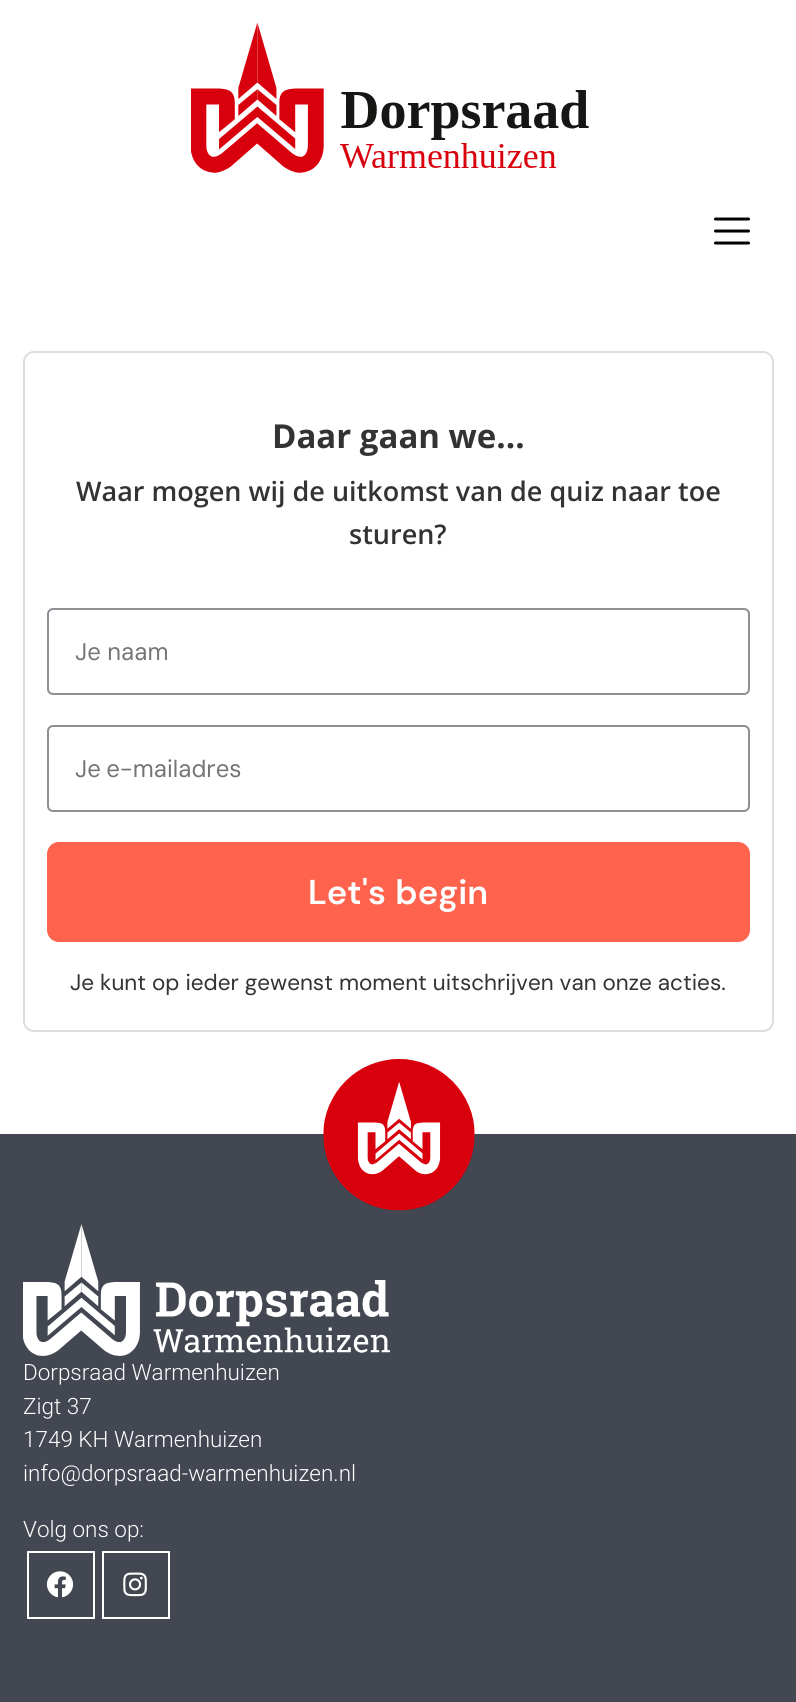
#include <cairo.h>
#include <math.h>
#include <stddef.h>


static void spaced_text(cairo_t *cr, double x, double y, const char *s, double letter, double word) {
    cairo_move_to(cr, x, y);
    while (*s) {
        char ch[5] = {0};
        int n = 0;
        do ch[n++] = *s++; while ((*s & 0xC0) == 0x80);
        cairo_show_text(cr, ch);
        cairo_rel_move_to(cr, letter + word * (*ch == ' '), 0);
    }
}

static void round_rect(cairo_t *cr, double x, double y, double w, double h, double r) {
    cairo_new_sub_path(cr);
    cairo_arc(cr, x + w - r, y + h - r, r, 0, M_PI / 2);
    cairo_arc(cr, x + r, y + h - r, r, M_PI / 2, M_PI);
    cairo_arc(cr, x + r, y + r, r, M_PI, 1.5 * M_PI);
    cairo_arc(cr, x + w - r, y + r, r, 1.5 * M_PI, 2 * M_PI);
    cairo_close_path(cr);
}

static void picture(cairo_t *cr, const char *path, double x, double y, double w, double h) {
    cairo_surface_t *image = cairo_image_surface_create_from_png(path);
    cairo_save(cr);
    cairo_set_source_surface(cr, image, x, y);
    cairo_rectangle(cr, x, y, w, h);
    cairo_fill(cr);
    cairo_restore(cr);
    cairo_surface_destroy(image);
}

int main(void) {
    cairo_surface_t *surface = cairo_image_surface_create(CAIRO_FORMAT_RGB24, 796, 1702);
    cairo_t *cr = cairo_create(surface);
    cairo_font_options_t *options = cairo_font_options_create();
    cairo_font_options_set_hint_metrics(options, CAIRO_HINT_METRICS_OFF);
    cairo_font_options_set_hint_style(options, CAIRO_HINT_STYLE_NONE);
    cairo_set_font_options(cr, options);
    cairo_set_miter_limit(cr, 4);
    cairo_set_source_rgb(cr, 1, 1, 1);
    cairo_paint(cr);
    picture(cr, "img1.png", 191, 23, 398, 150);
    cairo_new_path(cr);
    cairo_move_to(cr, 715.5, 219);
    cairo_line_to(cr, 748.5, 219);
    cairo_move_to(cr, 715.5, 231);
    cairo_line_to(cr, 748.5, 231);
    cairo_move_to(cr, 715.5, 243);
    cairo_line_to(cr, 748.5, 243);
    cairo_set_source_rgb(cr, 0, 0, 0);
    cairo_set_line_width(cr, 3);
    cairo_set_line_cap(cr, CAIRO_LINE_CAP_ROUND);
    cairo_stroke(cr);
    round_rect(cr, 24, 352, 749, 679, 10);
    cairo_set_source_rgb(cr, 0.867, 0.867, 0.867);
    cairo_set_line_width(cr, 2);
    cairo_set_line_cap(cr, CAIRO_LINE_CAP_BUTT);
    cairo_stroke(cr);
    cairo_select_font_face(cr, "Open Sans", CAIRO_FONT_SLANT_NORMAL, CAIRO_FONT_WEIGHT_BOLD);
    cairo_set_font_size(cr, 33);
    cairo_set_source_rgb(cr, 0.2, 0.2, 0.2);
    cairo_move_to(cr, 272, 448);
    cairo_show_text(cr, "Daar gaan we...");
    cairo_select_font_face(cr, "Open Sans SemiBold", CAIRO_FONT_SLANT_NORMAL, CAIRO_FONT_WEIGHT_NORMAL);
    cairo_set_font_size(cr, 27);
    cairo_move_to(cr, 76, 501);
    cairo_show_text(cr, "Waar mogen wij de uitkomst van de quiz naar toe");
    cairo_move_to(cr, 349, 544);
    cairo_show_text(cr, "sturen?");
    round_rect(cr, 48, 609, 701, 85, 5);
    cairo_set_source_rgb(cr, 0.549, 0.561, 0.58);
    cairo_stroke(cr);
    cairo_select_font_face(cr, "DM Sans", CAIRO_FONT_SLANT_NORMAL, CAIRO_FONT_WEIGHT_NORMAL);
    cairo_set_font_size(cr, 24);
    cairo_set_source_rgb(cr, 0.459, 0.459, 0.459);
    cairo_move_to(cr, 75, 660);
    cairo_show_text(cr, "Je naam");
    round_rect(cr, 48, 726, 701, 85, 5);
    cairo_set_source_rgb(cr, 0.549, 0.561, 0.58);
    cairo_stroke(cr);
    cairo_set_source_rgb(cr, 0.459, 0.459, 0.459);
    spaced_text(cr, 75, 777, "Je e-mailadres", 0, -1);
    cairo_set_source_rgb(cr, 1, 0.388, 0.302);
    round_rect(cr, 47, 842, 703, 100, 12);
    cairo_fill(cr);
    cairo_select_font_face(cr, "DM Sans SemiBold", CAIRO_FONT_SLANT_NORMAL, CAIRO_FONT_WEIGHT_NORMAL);
    cairo_set_font_size(cr, 34.5);
    cairo_set_source_rgb(cr, 1, 1, 1);
    spaced_text(cr, 308, 904, "Let's begin", 0, 1);
    cairo_select_font_face(cr, "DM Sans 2", CAIRO_FONT_SLANT_NORMAL, CAIRO_FONT_WEIGHT_NORMAL);
    cairo_set_font_size(cr, 22.5);
    cairo_set_source_rgb(cr, 0.2, 0.2, 0.2);
    cairo_move_to(cr, 70, 990);
    cairo_show_text(cr, "Je kunt op ieder gewenst moment uitschrijven van onze acties.");
    cairo_set_source_rgb(cr, 0.263, 0.278, 0.318);
    cairo_rectangle(cr, 0, 1134, 796, 568);
    cairo_fill(cr);
    picture(cr, "img2.png", 323, 1059, 152, 152);
    picture(cr, "img3.png", 23, 1224, 367, 132);
    cairo_select_font_face(cr, "Roboto Light", CAIRO_FONT_SLANT_NORMAL, CAIRO_FONT_WEIGHT_NORMAL);
    cairo_set_source_rgb(cr, 1, 1, 1);
    cairo_move_to(cr, 23, 1380);
    cairo_show_text(cr, "Dorpsraad Warmenhuizen");
    cairo_move_to(cr, 23, 1414);
    cairo_show_text(cr, "Zigt 37");
    cairo_move_to(cr, 23, 1447);
    cairo_show_text(cr, "1749 KH Warmenhuizen");
    cairo_move_to(cr, 23, 1481);
    cairo_show_text(cr, "info@dorpsraad-warmenhuizen.nl");
    cairo_move_to(cr, 23, 1537);
    cairo_show_text(cr, "Volg ons op:");
    cairo_rectangle(cr, 28, 1552, 66, 66);
    cairo_stroke(cr);
    picture(cr, "img4.png", 46, 1571, 28, 27);
    cairo_rectangle(cr, 103, 1552, 66, 66);
    cairo_stroke(cr);
    picture(cr, "img5.png", 123, 1572, 24, 25);
    cairo_surface_write_to_png(surface, "page.png");
    cairo_font_options_destroy(options);
    cairo_destroy(cr);
    cairo_surface_destroy(surface);
    return 0;
}
